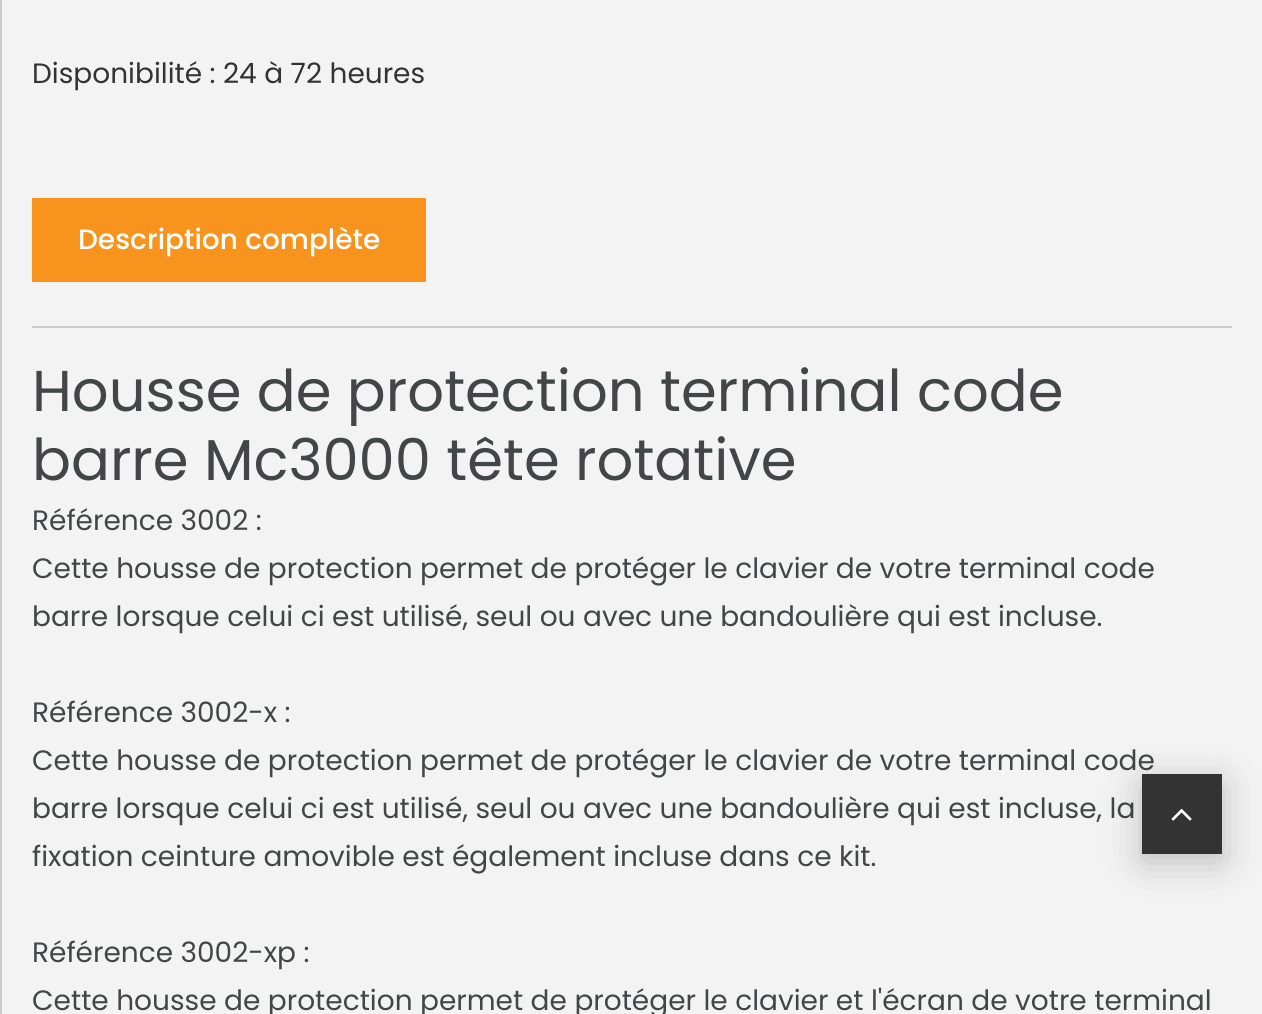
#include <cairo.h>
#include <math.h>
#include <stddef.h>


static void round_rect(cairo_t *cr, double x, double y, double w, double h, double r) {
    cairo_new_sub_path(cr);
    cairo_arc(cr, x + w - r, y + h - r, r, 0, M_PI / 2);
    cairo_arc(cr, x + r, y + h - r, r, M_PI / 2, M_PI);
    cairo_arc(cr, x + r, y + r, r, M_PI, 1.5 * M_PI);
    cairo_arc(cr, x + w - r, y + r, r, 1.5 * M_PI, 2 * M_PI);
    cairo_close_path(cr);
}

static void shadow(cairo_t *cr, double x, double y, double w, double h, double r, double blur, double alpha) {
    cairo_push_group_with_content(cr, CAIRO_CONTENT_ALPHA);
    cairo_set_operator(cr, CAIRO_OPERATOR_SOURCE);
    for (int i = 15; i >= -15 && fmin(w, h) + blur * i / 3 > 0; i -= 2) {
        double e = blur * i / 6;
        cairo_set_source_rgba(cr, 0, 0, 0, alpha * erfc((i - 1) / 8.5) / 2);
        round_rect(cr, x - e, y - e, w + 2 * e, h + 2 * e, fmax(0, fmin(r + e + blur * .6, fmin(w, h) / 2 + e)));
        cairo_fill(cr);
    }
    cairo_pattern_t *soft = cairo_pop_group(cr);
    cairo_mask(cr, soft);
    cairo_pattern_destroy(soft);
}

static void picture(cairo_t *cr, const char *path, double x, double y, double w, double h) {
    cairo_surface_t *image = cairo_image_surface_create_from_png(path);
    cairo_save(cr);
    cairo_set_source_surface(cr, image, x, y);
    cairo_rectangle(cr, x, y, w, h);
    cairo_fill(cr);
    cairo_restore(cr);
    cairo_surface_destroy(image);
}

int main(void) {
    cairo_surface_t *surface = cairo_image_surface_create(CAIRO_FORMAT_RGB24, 1262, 1014);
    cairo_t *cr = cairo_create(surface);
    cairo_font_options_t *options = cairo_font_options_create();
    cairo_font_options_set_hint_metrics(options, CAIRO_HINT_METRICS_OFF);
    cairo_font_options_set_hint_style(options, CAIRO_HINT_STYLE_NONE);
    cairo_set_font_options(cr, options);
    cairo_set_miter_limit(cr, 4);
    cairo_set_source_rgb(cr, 0.953, 0.953, 0.953);
    cairo_paint(cr);
    cairo_set_source_rgb(cr, 0.8, 0.8, 0.8);
    cairo_rectangle(cr, 0, 0, 2, 1014);
    cairo_fill(cr);
    cairo_select_font_face(cr, "Poppins", CAIRO_FONT_SLANT_NORMAL, CAIRO_FONT_WEIGHT_NORMAL);
    cairo_set_font_size(cr, 28);
    cairo_set_source_rgb(cr, 0.2, 0.2, 0.2);
    cairo_move_to(cr, 32, 83);
    cairo_show_text(cr, "Disponibilité : 24 à 72 heures");
    cairo_set_source_rgb(cr, 0.8, 0.8, 0.8);
    cairo_rectangle(cr, 32, 326, 1200, 2);
    cairo_fill(cr);
    cairo_set_source_rgb(cr, 0.969, 0.58, 0.114);
    cairo_rectangle(cr, 32, 198, 394, 84);
    cairo_fill(cr);
    cairo_select_font_face(cr, "Poppins Medium", CAIRO_FONT_SLANT_NORMAL, CAIRO_FONT_WEIGHT_NORMAL);
    cairo_set_source_rgb(cr, 1, 1, 1);
    cairo_move_to(cr, 78, 249);
    cairo_show_text(cr, "Description complète");
    cairo_select_font_face(cr, "Poppins", CAIRO_FONT_SLANT_NORMAL, CAIRO_FONT_WEIGHT_NORMAL);
    cairo_set_font_size(cr, 57.6);
    cairo_set_source_rgb(cr, 0.259, 0.275, 0.275);
    cairo_move_to(cr, 32, 411);
    cairo_show_text(cr, "Housse de protection terminal code");
    cairo_move_to(cr, 32, 480);
    cairo_show_text(cr, "barre Mc3000 tête rotative");
    cairo_set_font_size(cr, 28);
    cairo_move_to(cr, 32, 530);
    cairo_show_text(cr, "Référence 3002 :");
    cairo_move_to(cr, 32, 578);
    cairo_show_text(cr, "Cette housse de protection permet de protéger le clavier de votre terminal code");
    cairo_move_to(cr, 32, 626);
    cairo_show_text(cr, "barre lorsque celui ci est utilisé, seul ou avec une bandoulière qui est incluse.");
    cairo_move_to(cr, 32, 722);
    cairo_show_text(cr, "Référence 3002-x :");
    cairo_move_to(cr, 32, 770);
    cairo_show_text(cr, "Cette housse de protection permet de protéger le clavier de votre terminal code");
    cairo_move_to(cr, 32, 818);
    cairo_show_text(cr, "barre lorsque celui ci est utilisé, seul ou avec une bandoulière qui est incluse, la");
    cairo_move_to(cr, 32, 866);
    cairo_show_text(cr, "fixation ceinture amovible est également incluse dans ce kit.");
    cairo_move_to(cr, 32, 962);
    cairo_show_text(cr, "Référence 3002-xp :");
    cairo_move_to(cr, 32, 1010);
    cairo_show_text(cr, "Cette housse de protection permet de protéger le clavier et l'écran de votre terminal");
    cairo_set_source_rgb(cr, 0, 0, 0);
    shadow(cr, 1142, 782, 80, 80, 0, 19, 0.22);
    cairo_set_source_rgb(cr, 0.2, 0.2, 0.2);
    cairo_rectangle(cr, 1142, 774, 80, 80);
    cairo_fill(cr);
    picture(cr, "img1.png", 1171, 809, 21, 12);
    cairo_surface_write_to_png(surface, "page.png");
    cairo_font_options_destroy(options);
    cairo_destroy(cr);
    cairo_surface_destroy(surface);
    return 0;
}
